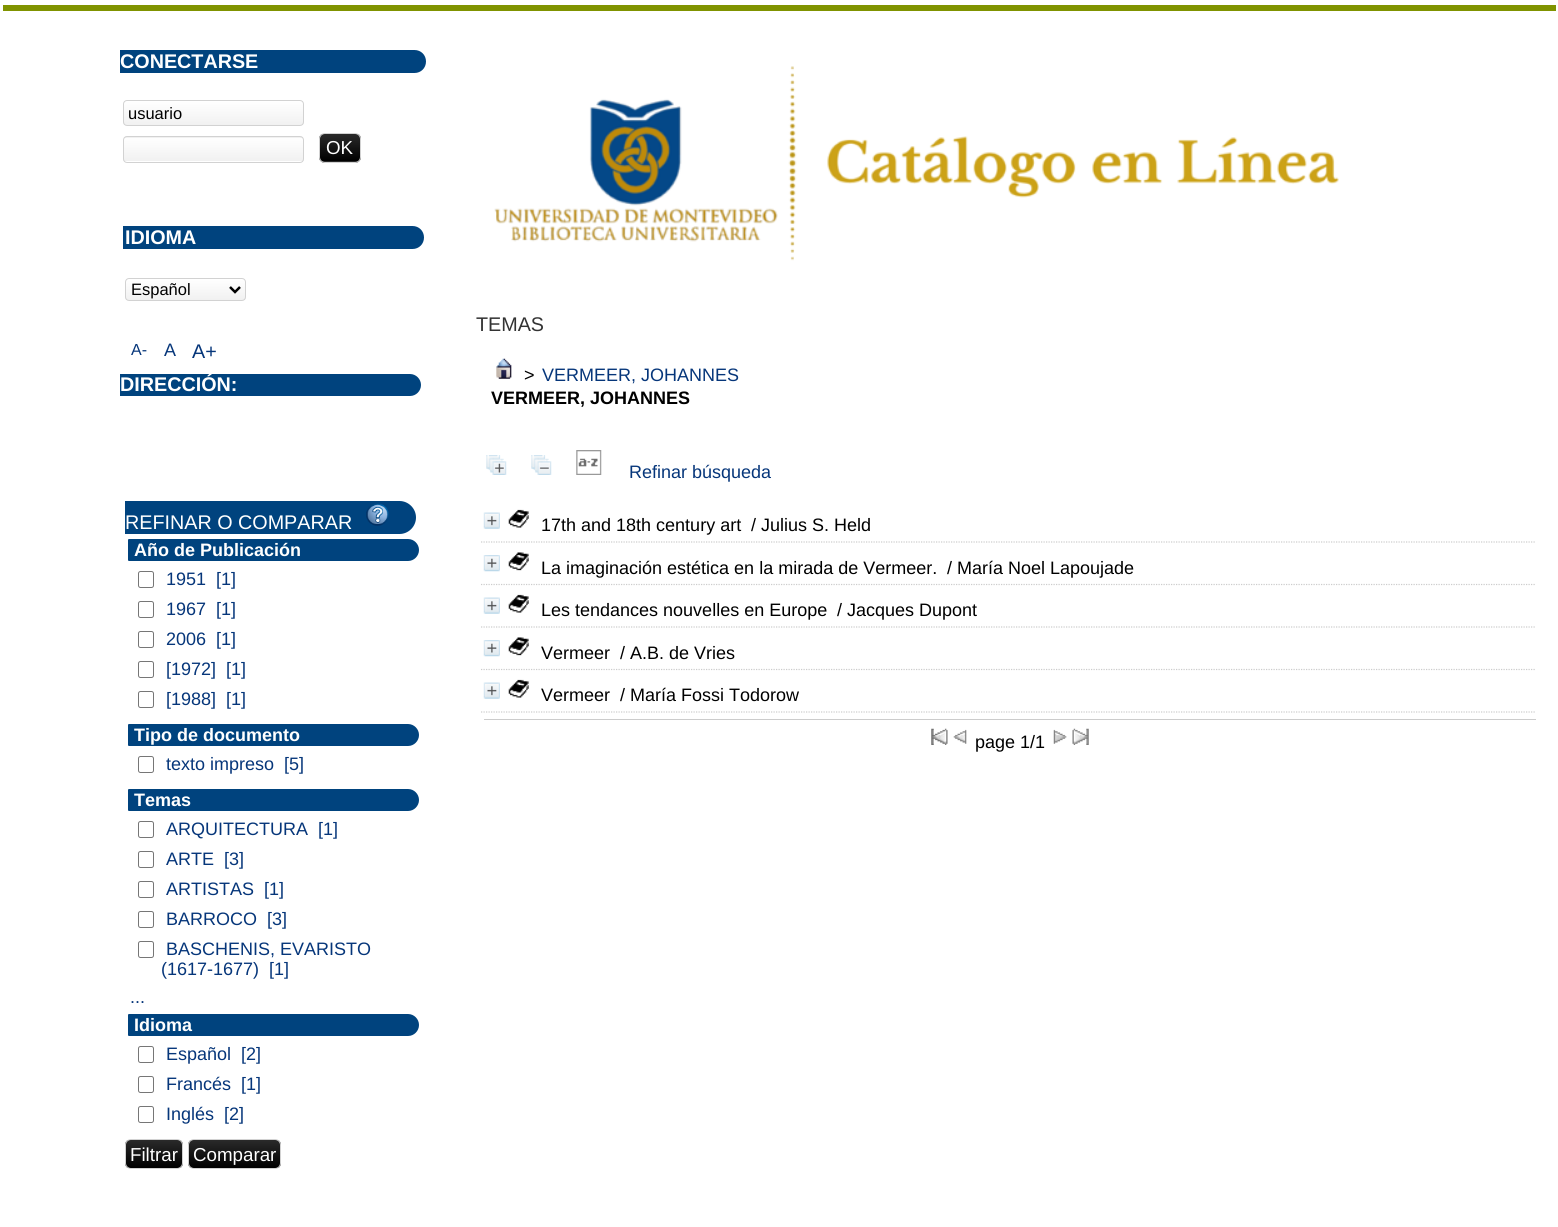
#include <cairo.h>
#include <math.h>
#include <stddef.h>


static void round_rect(cairo_t *cr, double x, double y, double w, double h, double r) {
    cairo_new_sub_path(cr);
    cairo_arc(cr, x + w - r, y + h - r, r, 0, M_PI / 2);
    cairo_arc(cr, x + r, y + h - r, r, M_PI / 2, M_PI);
    cairo_arc(cr, x + r, y + r, r, M_PI, 1.5 * M_PI);
    cairo_arc(cr, x + w - r, y + r, r, 1.5 * M_PI, 2 * M_PI);
    cairo_close_path(cr);
}

static void picture(cairo_t *cr, const char *path, double x, double y, double w, double h) {
    cairo_surface_t *image = cairo_image_surface_create_from_png(path);
    cairo_save(cr);
    cairo_set_source_surface(cr, image, x, y);
    cairo_rectangle(cr, x, y, w, h);
    cairo_fill(cr);
    cairo_restore(cr);
    cairo_surface_destroy(image);
}

int main(void) {
    cairo_surface_t *surface = cairo_image_surface_create(CAIRO_FORMAT_RGB24, 1558, 1227);
    cairo_t *cr = cairo_create(surface);
    cairo_font_options_t *options = cairo_font_options_create();
    cairo_font_options_set_hint_metrics(options, CAIRO_HINT_METRICS_OFF);
    cairo_font_options_set_hint_style(options, CAIRO_HINT_STYLE_NONE);
    cairo_set_font_options(cr, options);
    cairo_set_miter_limit(cr, 4);
    cairo_pattern_t *gradient;
    cairo_set_source_rgb(cr, 1, 1, 1);
    cairo_paint(cr);
    cairo_set_source_rgb(cr, 0.502, 0.576, 0);
    cairo_rectangle(cr, 3, 5, 1553, 6);
    cairo_fill(cr);
    cairo_set_source_rgb(cr, 0, 0.263, 0.494);
    cairo_new_path(cr);
    cairo_move_to(cr, 120, 50);
    cairo_line_to(cr, 414.5, 50);
    cairo_curve_to(cr, 421, 50, 426, 55, 426, 61.5);
    cairo_curve_to(cr, 426, 68, 421, 73, 414.5, 73);
    cairo_line_to(cr, 120, 73);
    cairo_close_path(cr);
    cairo_fill(cr);
    cairo_select_font_face(cr, "Liberation Sans", CAIRO_FONT_SLANT_NORMAL, CAIRO_FONT_WEIGHT_BOLD);
    cairo_set_font_size(cr, 19.75);
    cairo_set_source_rgb(cr, 1, 1, 1);
    cairo_move_to(cr, 120, 68);
    cairo_show_text(cr, "CONECTARSE");
    cairo_save(cr);
    round_rect(cr, 123, 100, 181, 26, 4);
    cairo_clip(cr);
    gradient = cairo_pattern_create_linear(213, 101, 213, 125);
    cairo_pattern_add_color_stop_rgba(gradient, 0.01, 1, 1, 1, 1);
    cairo_pattern_add_color_stop_rgba(gradient, 1, 0.945, 0.945, 0.945, 1);
    cairo_set_source(cr, gradient);
    cairo_pattern_destroy(gradient);
    cairo_rectangle(cr, 123, 101, 181, 24);
    cairo_fill(cr);
    cairo_restore(cr);
    round_rect(cr, 123.5, 100.5, 180, 25, 3.5);
    cairo_set_source_rgb(cr, 0.824, 0.824, 0.824);
    cairo_set_line_width(cr, 1);
    cairo_stroke(cr);
    cairo_select_font_face(cr, "Liberation Sans", CAIRO_FONT_SLANT_NORMAL, CAIRO_FONT_WEIGHT_NORMAL);
    cairo_set_font_size(cr, 16.5);
    cairo_set_source_rgb(cr, 0, 0, 0);
    cairo_move_to(cr, 128, 119);
    cairo_show_text(cr, "usuario");
    cairo_save(cr);
    round_rect(cr, 123, 136, 181, 27, 4);
    cairo_clip(cr);
    gradient = cairo_pattern_create_linear(213, 114, 213, 138);
    cairo_pattern_add_color_stop_rgba(gradient, 0.01, 1, 1, 1, 1);
    cairo_pattern_add_color_stop_rgba(gradient, 1, 0.945, 0.945, 0.945, 1);
    cairo_set_source(cr, gradient);
    cairo_pattern_destroy(gradient);
    cairo_rectangle(cr, 123, 136, 181, 2);
    cairo_fill(cr);
    gradient = cairo_pattern_create_linear(213, 137, 213, 161);
    cairo_pattern_add_color_stop_rgba(gradient, 0.01, 1, 1, 1, 1);
    cairo_pattern_add_color_stop_rgba(gradient, 1, 0.945, 0.945, 0.945, 1);
    cairo_set_source(cr, gradient);
    cairo_pattern_destroy(gradient);
    cairo_rectangle(cr, 123, 138, 181, 23);
    cairo_fill(cr);
    cairo_restore(cr);
    round_rect(cr, 123.5, 136.5, 180, 26, 3.5);
    cairo_set_source_rgb(cr, 0.824, 0.824, 0.824);
    cairo_stroke(cr);
    cairo_save(cr);
    round_rect(cr, 319, 133, 42, 30, 6);
    cairo_clip(cr);
    gradient = cairo_pattern_create_linear(340, 134, 340, 161);
    cairo_pattern_add_color_stop_rgba(gradient, 0, 0.165, 0.165, 0.165, 1);
    cairo_pattern_add_color_stop_rgba(gradient, 1, 0, 0, 0, 1);
    cairo_set_source(cr, gradient);
    cairo_pattern_destroy(gradient);
    cairo_rectangle(cr, 319, 134, 42, 27);
    cairo_fill(cr);
    gradient = cairo_pattern_create_linear(340, 161, 340, 189);
    cairo_pattern_add_color_stop_rgba(gradient, 0, 0.165, 0.165, 0.165, 1);
    cairo_pattern_add_color_stop_rgba(gradient, 1, 0, 0, 0, 1);
    cairo_set_source(cr, gradient);
    cairo_pattern_destroy(gradient);
    cairo_rectangle(cr, 319, 161, 42, 2);
    cairo_fill(cr);
    cairo_restore(cr);
    round_rect(cr, 319.5, 133.5, 41, 29, 5.5);
    cairo_stroke(cr);
    cairo_set_font_size(cr, 18.75);
    cairo_set_source_rgb(cr, 1, 1, 1);
    cairo_move_to(cr, 326, 154);
    cairo_show_text(cr, "OK");
    cairo_set_source_rgb(cr, 0, 0.263, 0.494);
    cairo_new_path(cr);
    cairo_move_to(cr, 123, 226);
    cairo_line_to(cr, 412.5, 226);
    cairo_curve_to(cr, 419, 226, 424, 231, 424, 237.5);
    cairo_curve_to(cr, 424, 244, 419, 249, 412.5, 249);
    cairo_line_to(cr, 123, 249);
    cairo_close_path(cr);
    cairo_fill(cr);
    cairo_select_font_face(cr, "Liberation Sans", CAIRO_FONT_SLANT_NORMAL, CAIRO_FONT_WEIGHT_BOLD);
    cairo_set_font_size(cr, 19.75);
    cairo_set_source_rgb(cr, 1, 1, 1);
    cairo_move_to(cr, 125, 244);
    cairo_show_text(cr, "IDIOMA");
    cairo_save(cr);
    round_rect(cr, 125, 278, 121, 23, 4);
    cairo_clip(cr);
    gradient = cairo_pattern_create_linear(186, 279, 186, 300);
    cairo_pattern_add_color_stop_rgba(gradient, 0.01, 1, 1, 1, 1);
    cairo_pattern_add_color_stop_rgba(gradient, 1, 0.945, 0.945, 0.945, 1);
    cairo_set_source(cr, gradient);
    cairo_pattern_destroy(gradient);
    cairo_rectangle(cr, 125, 279, 121, 21);
    cairo_fill(cr);
    cairo_restore(cr);
    round_rect(cr, 125.5, 278.5, 120, 22, 3.5);
    cairo_set_source_rgb(cr, 0.824, 0.824, 0.824);
    cairo_stroke(cr);
    cairo_new_path(cr);
    cairo_move_to(cr, 230, 287);
    cairo_line_to(cr, 235, 292);
    cairo_line_to(cr, 240, 287);
    cairo_set_source_rgb(cr, 0, 0, 0);
    cairo_set_line_width(cr, 2.5);
    cairo_stroke(cr);
    cairo_select_font_face(cr, "Liberation Sans", CAIRO_FONT_SLANT_NORMAL, CAIRO_FONT_WEIGHT_NORMAL);
    cairo_set_font_size(cr, 16.5);
    cairo_move_to(cr, 131, 295);
    cairo_show_text(cr, "Español");
    cairo_set_font_size(cr, 16);
    cairo_set_source_rgb(cr, 0.024, 0.212, 0.478);
    cairo_move_to(cr, 131, 355);
    cairo_show_text(cr, "A-");
    cairo_set_font_size(cr, 18);
    cairo_move_to(cr, 164, 356);
    cairo_show_text(cr, "A");
    cairo_set_font_size(cr, 19.75);
    cairo_move_to(cr, 192, 358);
    cairo_show_text(cr, "A+");
    cairo_set_source_rgb(cr, 0, 0.263, 0.494);
    cairo_new_path(cr);
    cairo_move_to(cr, 120, 374);
    cairo_line_to(cr, 410, 374);
    cairo_curve_to(cr, 416, 374, 421, 379, 421, 385);
    cairo_curve_to(cr, 421, 391, 416, 396, 410, 396);
    cairo_line_to(cr, 120, 396);
    cairo_close_path(cr);
    cairo_fill(cr);
    cairo_select_font_face(cr, "Liberation Sans", CAIRO_FONT_SLANT_NORMAL, CAIRO_FONT_WEIGHT_BOLD);
    cairo_set_source_rgb(cr, 1, 1, 1);
    cairo_move_to(cr, 120, 391);
    cairo_show_text(cr, "DIRECCIÓN:");
    cairo_set_source_rgb(cr, 0, 0.263, 0.494);
    cairo_new_path(cr);
    cairo_move_to(cr, 125, 501);
    cairo_line_to(cr, 399.5, 501);
    cairo_curve_to(cr, 408.5, 501, 416, 508.5, 416, 517.5);
    cairo_curve_to(cr, 416, 526.5, 408.5, 534, 399.5, 534);
    cairo_line_to(cr, 125, 534);
    cairo_close_path(cr);
    cairo_fill(cr);
    cairo_select_font_face(cr, "Liberation Sans", CAIRO_FONT_SLANT_NORMAL, CAIRO_FONT_WEIGHT_NORMAL);
    cairo_set_source_rgb(cr, 1, 1, 1);
    cairo_move_to(cr, 125, 529);
    cairo_show_text(cr, "REFINAR O COMPARAR");
    picture(cr, "img1.png", 366, 503, 23, 23);
    cairo_set_source_rgb(cr, 0, 0.263, 0.494);
    cairo_new_path(cr);
    cairo_move_to(cr, 129, 539);
    cairo_line_to(cr, 408, 539);
    cairo_curve_to(cr, 414, 539, 419, 544, 419, 550);
    cairo_curve_to(cr, 419, 556, 414, 561, 408, 561);
    cairo_line_to(cr, 129, 561);
    cairo_curve_to(cr, 128.5, 561, 128, 560.5, 128, 560);
    cairo_line_to(cr, 128, 540);
    cairo_curve_to(cr, 128, 539.5, 128.5, 539, 129, 539);
    cairo_close_path(cr);
    cairo_fill(cr);
    cairo_select_font_face(cr, "Liberation Sans", CAIRO_FONT_SLANT_NORMAL, CAIRO_FONT_WEIGHT_BOLD);
    cairo_set_font_size(cr, 18);
    cairo_set_source_rgb(cr, 1, 1, 1);
    cairo_move_to(cr, 134, 556);
    cairo_show_text(cr, "Año de Publicación");
    round_rect(cr, 138.5, 571.5, 15, 16, 2);
    cairo_set_source_rgb(cr, 0.463, 0.463, 0.463);
    cairo_set_line_width(cr, 1);
    cairo_stroke(cr);
    cairo_select_font_face(cr, "Liberation Sans", CAIRO_FONT_SLANT_NORMAL, CAIRO_FONT_WEIGHT_NORMAL);
    cairo_set_source_rgb(cr, 0.024, 0.212, 0.478);
    cairo_move_to(cr, 166, 585);
    cairo_show_text(cr, "1951");
    cairo_move_to(cr, 216, 585);
    cairo_show_text(cr, "[1]");
    round_rect(cr, 138.5, 601.5, 15, 16, 2);
    cairo_set_source_rgb(cr, 0.463, 0.463, 0.463);
    cairo_stroke(cr);
    cairo_set_source_rgb(cr, 0.024, 0.212, 0.478);
    cairo_move_to(cr, 166, 615);
    cairo_show_text(cr, "1967");
    cairo_move_to(cr, 216, 615);
    cairo_show_text(cr, "[1]");
    round_rect(cr, 138.5, 631.5, 15, 16, 2);
    cairo_set_source_rgb(cr, 0.463, 0.463, 0.463);
    cairo_stroke(cr);
    cairo_set_source_rgb(cr, 0.024, 0.212, 0.478);
    cairo_move_to(cr, 166, 645);
    cairo_show_text(cr, "2006");
    cairo_move_to(cr, 216, 645);
    cairo_show_text(cr, "[1]");
    round_rect(cr, 138.5, 661.5, 15, 16, 2);
    cairo_set_source_rgb(cr, 0.463, 0.463, 0.463);
    cairo_stroke(cr);
    cairo_set_source_rgb(cr, 0.024, 0.212, 0.478);
    cairo_move_to(cr, 166, 675);
    cairo_show_text(cr, "[1972]");
    cairo_move_to(cr, 226, 675);
    cairo_show_text(cr, "[1]");
    round_rect(cr, 138.5, 691.5, 15, 16, 2);
    cairo_set_source_rgb(cr, 0.463, 0.463, 0.463);
    cairo_stroke(cr);
    cairo_set_source_rgb(cr, 0.024, 0.212, 0.478);
    cairo_move_to(cr, 166, 705);
    cairo_show_text(cr, "[1988]");
    cairo_move_to(cr, 226, 705);
    cairo_show_text(cr, "[1]");
    cairo_set_source_rgb(cr, 0, 0.263, 0.494);
    cairo_new_path(cr);
    cairo_move_to(cr, 129, 724);
    cairo_line_to(cr, 408, 724);
    cairo_curve_to(cr, 414, 724, 419, 729, 419, 735);
    cairo_curve_to(cr, 419, 741, 414, 746, 408, 746);
    cairo_line_to(cr, 129, 746);
    cairo_curve_to(cr, 128.5, 746, 128, 745.5, 128, 745);
    cairo_line_to(cr, 128, 725);
    cairo_curve_to(cr, 128, 724.5, 128.5, 724, 129, 724);
    cairo_close_path(cr);
    cairo_fill(cr);
    cairo_select_font_face(cr, "Liberation Sans", CAIRO_FONT_SLANT_NORMAL, CAIRO_FONT_WEIGHT_BOLD);
    cairo_set_source_rgb(cr, 1, 1, 1);
    cairo_move_to(cr, 134, 741);
    cairo_show_text(cr, "Tipo de documento");
    round_rect(cr, 138.5, 756.5, 15, 16, 2);
    cairo_set_source_rgb(cr, 0.463, 0.463, 0.463);
    cairo_stroke(cr);
    cairo_select_font_face(cr, "Liberation Sans", CAIRO_FONT_SLANT_NORMAL, CAIRO_FONT_WEIGHT_NORMAL);
    cairo_set_source_rgb(cr, 0.024, 0.212, 0.478);
    cairo_move_to(cr, 166, 770);
    cairo_show_text(cr, "texto impreso");
    cairo_move_to(cr, 284, 770);
    cairo_show_text(cr, "[5]");
    cairo_set_source_rgb(cr, 0, 0.263, 0.494);
    cairo_new_path(cr);
    cairo_move_to(cr, 129, 789);
    cairo_line_to(cr, 408, 789);
    cairo_curve_to(cr, 414, 789, 419, 794, 419, 800);
    cairo_curve_to(cr, 419, 806, 414, 811, 408, 811);
    cairo_line_to(cr, 129, 811);
    cairo_curve_to(cr, 128.5, 811, 128, 810.5, 128, 810);
    cairo_line_to(cr, 128, 790);
    cairo_curve_to(cr, 128, 789.5, 128.5, 789, 129, 789);
    cairo_close_path(cr);
    cairo_fill(cr);
    cairo_select_font_face(cr, "Liberation Sans", CAIRO_FONT_SLANT_NORMAL, CAIRO_FONT_WEIGHT_BOLD);
    cairo_set_source_rgb(cr, 1, 1, 1);
    cairo_move_to(cr, 134, 806);
    cairo_show_text(cr, "Temas");
    round_rect(cr, 138.5, 821.5, 15, 16, 2);
    cairo_set_source_rgb(cr, 0.463, 0.463, 0.463);
    cairo_stroke(cr);
    cairo_select_font_face(cr, "Liberation Sans", CAIRO_FONT_SLANT_NORMAL, CAIRO_FONT_WEIGHT_NORMAL);
    cairo_set_source_rgb(cr, 0.024, 0.212, 0.478);
    cairo_move_to(cr, 166, 835);
    cairo_show_text(cr, "ARQUITECTURA");
    cairo_move_to(cr, 318, 835);
    cairo_show_text(cr, "[1]");
    round_rect(cr, 138.5, 851.5, 15, 16, 2);
    cairo_set_source_rgb(cr, 0.463, 0.463, 0.463);
    cairo_stroke(cr);
    cairo_set_source_rgb(cr, 0.024, 0.212, 0.478);
    cairo_move_to(cr, 166, 865);
    cairo_show_text(cr, "ARTE");
    cairo_move_to(cr, 224, 865);
    cairo_show_text(cr, "[3]");
    round_rect(cr, 138.5, 881.5, 15, 16, 2);
    cairo_set_source_rgb(cr, 0.463, 0.463, 0.463);
    cairo_stroke(cr);
    cairo_set_source_rgb(cr, 0.024, 0.212, 0.478);
    cairo_move_to(cr, 166, 895);
    cairo_show_text(cr, "ARTISTAS");
    cairo_move_to(cr, 264, 895);
    cairo_show_text(cr, "[1]");
    round_rect(cr, 138.5, 911.5, 15, 16, 2);
    cairo_set_source_rgb(cr, 0.463, 0.463, 0.463);
    cairo_stroke(cr);
    cairo_set_source_rgb(cr, 0.024, 0.212, 0.478);
    cairo_move_to(cr, 166, 925);
    cairo_show_text(cr, "BARROCO");
    cairo_move_to(cr, 267, 925);
    cairo_show_text(cr, "[3]");
    round_rect(cr, 138.5, 941.5, 15, 16, 2);
    cairo_set_source_rgb(cr, 0.463, 0.463, 0.463);
    cairo_stroke(cr);
    cairo_set_source_rgb(cr, 0.024, 0.212, 0.478);
    cairo_move_to(cr, 166, 955);
    cairo_show_text(cr, "BASCHENIS, EVARISTO");
    cairo_move_to(cr, 161, 975);
    cairo_show_text(cr, "(1617-1677)");
    cairo_move_to(cr, 269, 975);
    cairo_show_text(cr, "[1]");
    cairo_move_to(cr, 130, 1003);
    cairo_show_text(cr, "...");
    cairo_set_source_rgb(cr, 0, 0.263, 0.494);
    cairo_new_path(cr);
    cairo_move_to(cr, 129, 1014);
    cairo_line_to(cr, 408, 1014);
    cairo_curve_to(cr, 414, 1014, 419, 1019, 419, 1025);
    cairo_curve_to(cr, 419, 1031, 414, 1036, 408, 1036);
    cairo_line_to(cr, 129, 1036);
    cairo_curve_to(cr, 128.5, 1036, 128, 1035.5, 128, 1035);
    cairo_line_to(cr, 128, 1015);
    cairo_curve_to(cr, 128, 1014.5, 128.5, 1014, 129, 1014);
    cairo_close_path(cr);
    cairo_fill(cr);
    cairo_select_font_face(cr, "Liberation Sans", CAIRO_FONT_SLANT_NORMAL, CAIRO_FONT_WEIGHT_BOLD);
    cairo_set_source_rgb(cr, 1, 1, 1);
    cairo_move_to(cr, 134, 1031);
    cairo_show_text(cr, "Idioma");
    round_rect(cr, 138.5, 1046.5, 15, 16, 2);
    cairo_set_source_rgb(cr, 0.463, 0.463, 0.463);
    cairo_stroke(cr);
    cairo_select_font_face(cr, "Liberation Sans", CAIRO_FONT_SLANT_NORMAL, CAIRO_FONT_WEIGHT_NORMAL);
    cairo_set_source_rgb(cr, 0.024, 0.212, 0.478);
    cairo_move_to(cr, 166, 1060);
    cairo_show_text(cr, "Español");
    cairo_move_to(cr, 241, 1060);
    cairo_show_text(cr, "[2]");
    round_rect(cr, 138.5, 1076.5, 15, 16, 2);
    cairo_set_source_rgb(cr, 0.463, 0.463, 0.463);
    cairo_stroke(cr);
    cairo_set_source_rgb(cr, 0.024, 0.212, 0.478);
    cairo_move_to(cr, 166, 1090);
    cairo_show_text(cr, "Francés");
    cairo_move_to(cr, 241, 1090);
    cairo_show_text(cr, "[1]");
    round_rect(cr, 138.5, 1106.5, 15, 16, 2);
    cairo_set_source_rgb(cr, 0.463, 0.463, 0.463);
    cairo_stroke(cr);
    cairo_set_source_rgb(cr, 0.024, 0.212, 0.478);
    cairo_move_to(cr, 166, 1120);
    cairo_show_text(cr, "Inglés");
    cairo_move_to(cr, 224, 1120);
    cairo_show_text(cr, "[2]");
    cairo_save(cr);
    round_rect(cr, 125, 1139, 58, 30, 6);
    cairo_clip(cr);
    gradient = cairo_pattern_create_linear(154, 1140, 154, 1168);
    cairo_pattern_add_color_stop_rgba(gradient, 0, 0.165, 0.165, 0.165, 1);
    cairo_pattern_add_color_stop_rgba(gradient, 1, 0, 0, 0, 1);
    cairo_set_source(cr, gradient);
    cairo_pattern_destroy(gradient);
    cairo_rectangle(cr, 125, 1140, 58, 28);
    cairo_fill(cr);
    cairo_restore(cr);
    round_rect(cr, 125.5, 1139.5, 57, 29, 5.5);
    cairo_set_source_rgb(cr, 0.824, 0.824, 0.824);
    cairo_stroke(cr);
    cairo_set_font_size(cr, 18.75);
    cairo_set_source_rgb(cr, 1, 1, 1);
    cairo_move_to(cr, 130, 1161);
    cairo_show_text(cr, "Filtrar");
    cairo_save(cr);
    round_rect(cr, 188, 1139, 93, 30, 6);
    cairo_clip(cr);
    gradient = cairo_pattern_create_linear(234, 1140, 234, 1168);
    cairo_pattern_add_color_stop_rgba(gradient, 0, 0.165, 0.165, 0.165, 1);
    cairo_pattern_add_color_stop_rgba(gradient, 1, 0, 0, 0, 1);
    cairo_set_source(cr, gradient);
    cairo_pattern_destroy(gradient);
    cairo_rectangle(cr, 188, 1140, 93, 28);
    cairo_fill(cr);
    cairo_restore(cr);
    round_rect(cr, 188.5, 1139.5, 92, 29, 5.5);
    cairo_set_source_rgb(cr, 0.824, 0.824, 0.824);
    cairo_stroke(cr);
    cairo_set_source_rgb(cr, 1, 1, 1);
    cairo_move_to(cr, 193, 1161);
    cairo_show_text(cr, "Comparar");
    picture(cr, "img2.png", 494, 66, 845, 195);
    cairo_set_font_size(cr, 19.75);
    cairo_set_source_rgb(cr, 0.2, 0.2, 0.2);
    cairo_move_to(cr, 476, 331);
    cairo_show_text(cr, "TEMAS");
    picture(cr, "img3.png", 496, 358, 16, 21);
    cairo_set_font_size(cr, 18);
    cairo_set_source_rgb(cr, 0, 0, 0);
    cairo_move_to(cr, 524, 381);
    cairo_show_text(cr, ">");
    cairo_set_source_rgb(cr, 0.024, 0.212, 0.478);
    cairo_move_to(cr, 542, 381);
    cairo_show_text(cr, "VERMEER, JOHANNES");
    cairo_select_font_face(cr, "Liberation Sans", CAIRO_FONT_SLANT_NORMAL, CAIRO_FONT_WEIGHT_BOLD);
    cairo_set_source_rgb(cr, 0, 0, 0);
    cairo_move_to(cr, 491, 404);
    cairo_show_text(cr, "VERMEER, JOHANNES");
    picture(cr, "img4.png", 486, 455, 21, 20);
    picture(cr, "img5.png", 531, 455, 21, 20);
    picture(cr, "img6.png", 576, 450, 26, 25);
    cairo_select_font_face(cr, "Liberation Sans", CAIRO_FONT_SLANT_NORMAL, CAIRO_FONT_WEIGHT_NORMAL);
    cairo_set_source_rgb(cr, 0.024, 0.212, 0.478);
    cairo_move_to(cr, 629, 478);
    cairo_show_text(cr, "Refinar búsqueda");
    cairo_new_path(cr);
    cairo_move_to(cr, 481, 542);
    cairo_line_to(cr, 1536, 542);
    cairo_set_source_rgb(cr, 0.8, 0.8, 0.8);
    cairo_set_line_width(cr, 1.2);
    cairo_set_dash(cr, (double[]){1.25, 1.25}, 2, 0);
    cairo_stroke(cr);
    picture(cr, "img7.png", 483, 512, 17, 17);
    picture(cr, "img8.png", 508, 509, 21, 19);
    cairo_set_source_rgb(cr, 0, 0, 0);
    cairo_move_to(cr, 541, 531);
    cairo_show_text(cr, "17th and 18th century art");
    cairo_move_to(cr, 751, 531);
    cairo_show_text(cr, "/ Julius S. Held");
    cairo_new_path(cr);
    cairo_move_to(cr, 481, 584.5);
    cairo_line_to(cr, 1536, 584.5);
    cairo_set_source_rgb(cr, 0.8, 0.8, 0.8);
    cairo_stroke(cr);
    picture(cr, "img9.png", 483, 555, 17, 17);
    picture(cr, "img10.png", 508, 552, 21, 19);
    cairo_set_source_rgb(cr, 0, 0, 0);
    cairo_move_to(cr, 541, 574);
    cairo_show_text(cr, "La imaginación estética en la mirada de Vermeer.");
    cairo_move_to(cr, 947, 574);
    cairo_show_text(cr, "/ María Noel Lapoujade");
    cairo_new_path(cr);
    cairo_move_to(cr, 481, 627);
    cairo_line_to(cr, 1536, 627);
    cairo_set_source_rgb(cr, 0.8, 0.8, 0.8);
    cairo_stroke(cr);
    picture(cr, "img11.png", 483, 597, 17, 17);
    picture(cr, "img8.png", 508, 594, 21, 19);
    cairo_set_source_rgb(cr, 0, 0, 0);
    cairo_move_to(cr, 541, 616);
    cairo_show_text(cr, "Les tendances nouvelles en Europe");
    cairo_move_to(cr, 837, 616);
    cairo_show_text(cr, "/ Jacques Dupont");
    cairo_new_path(cr);
    cairo_move_to(cr, 481, 669.5);
    cairo_line_to(cr, 1536, 669.5);
    cairo_set_source_rgb(cr, 0.8, 0.8, 0.8);
    cairo_stroke(cr);
    picture(cr, "img9.png", 483, 640, 17, 17);
    picture(cr, "img10.png", 508, 637, 21, 19);
    cairo_set_source_rgb(cr, 0, 0, 0);
    cairo_move_to(cr, 541, 659);
    cairo_show_text(cr, "Vermeer");
    cairo_move_to(cr, 620, 659);
    cairo_show_text(cr, "/ A.B. de Vries");
    cairo_new_path(cr);
    cairo_move_to(cr, 481, 712);
    cairo_line_to(cr, 1536, 712);
    cairo_set_source_rgb(cr, 0.8, 0.8, 0.8);
    cairo_stroke(cr);
    picture(cr, "img11.png", 483, 682, 17, 17);
    picture(cr, "img8.png", 508, 679, 21, 19);
    cairo_set_source_rgb(cr, 0, 0, 0);
    cairo_move_to(cr, 541, 701);
    cairo_show_text(cr, "Vermeer");
    cairo_move_to(cr, 620, 701);
    cairo_show_text(cr, "/ María Fossi Todorow");
    cairo_set_source_rgb(cr, 0.8, 0.8, 0.8);
    cairo_rectangle(cr, 484, 719, 1052, 1);
    cairo_fill(cr);
    picture(cr, "img12.png", 931, 728, 17, 17);
    picture(cr, "img13.png", 953, 729, 14, 15);
    cairo_set_source_rgb(cr, 0, 0, 0);
    cairo_move_to(cr, 975, 748);
    cairo_show_text(cr, "page 1/1");
    picture(cr, "img14.png", 1053, 729, 14, 15);
    picture(cr, "img15.png", 1072, 728, 17, 17);
    cairo_surface_write_to_png(surface, "page.png");
    cairo_font_options_destroy(options);
    cairo_destroy(cr);
    cairo_surface_destroy(surface);
    return 0;
}
